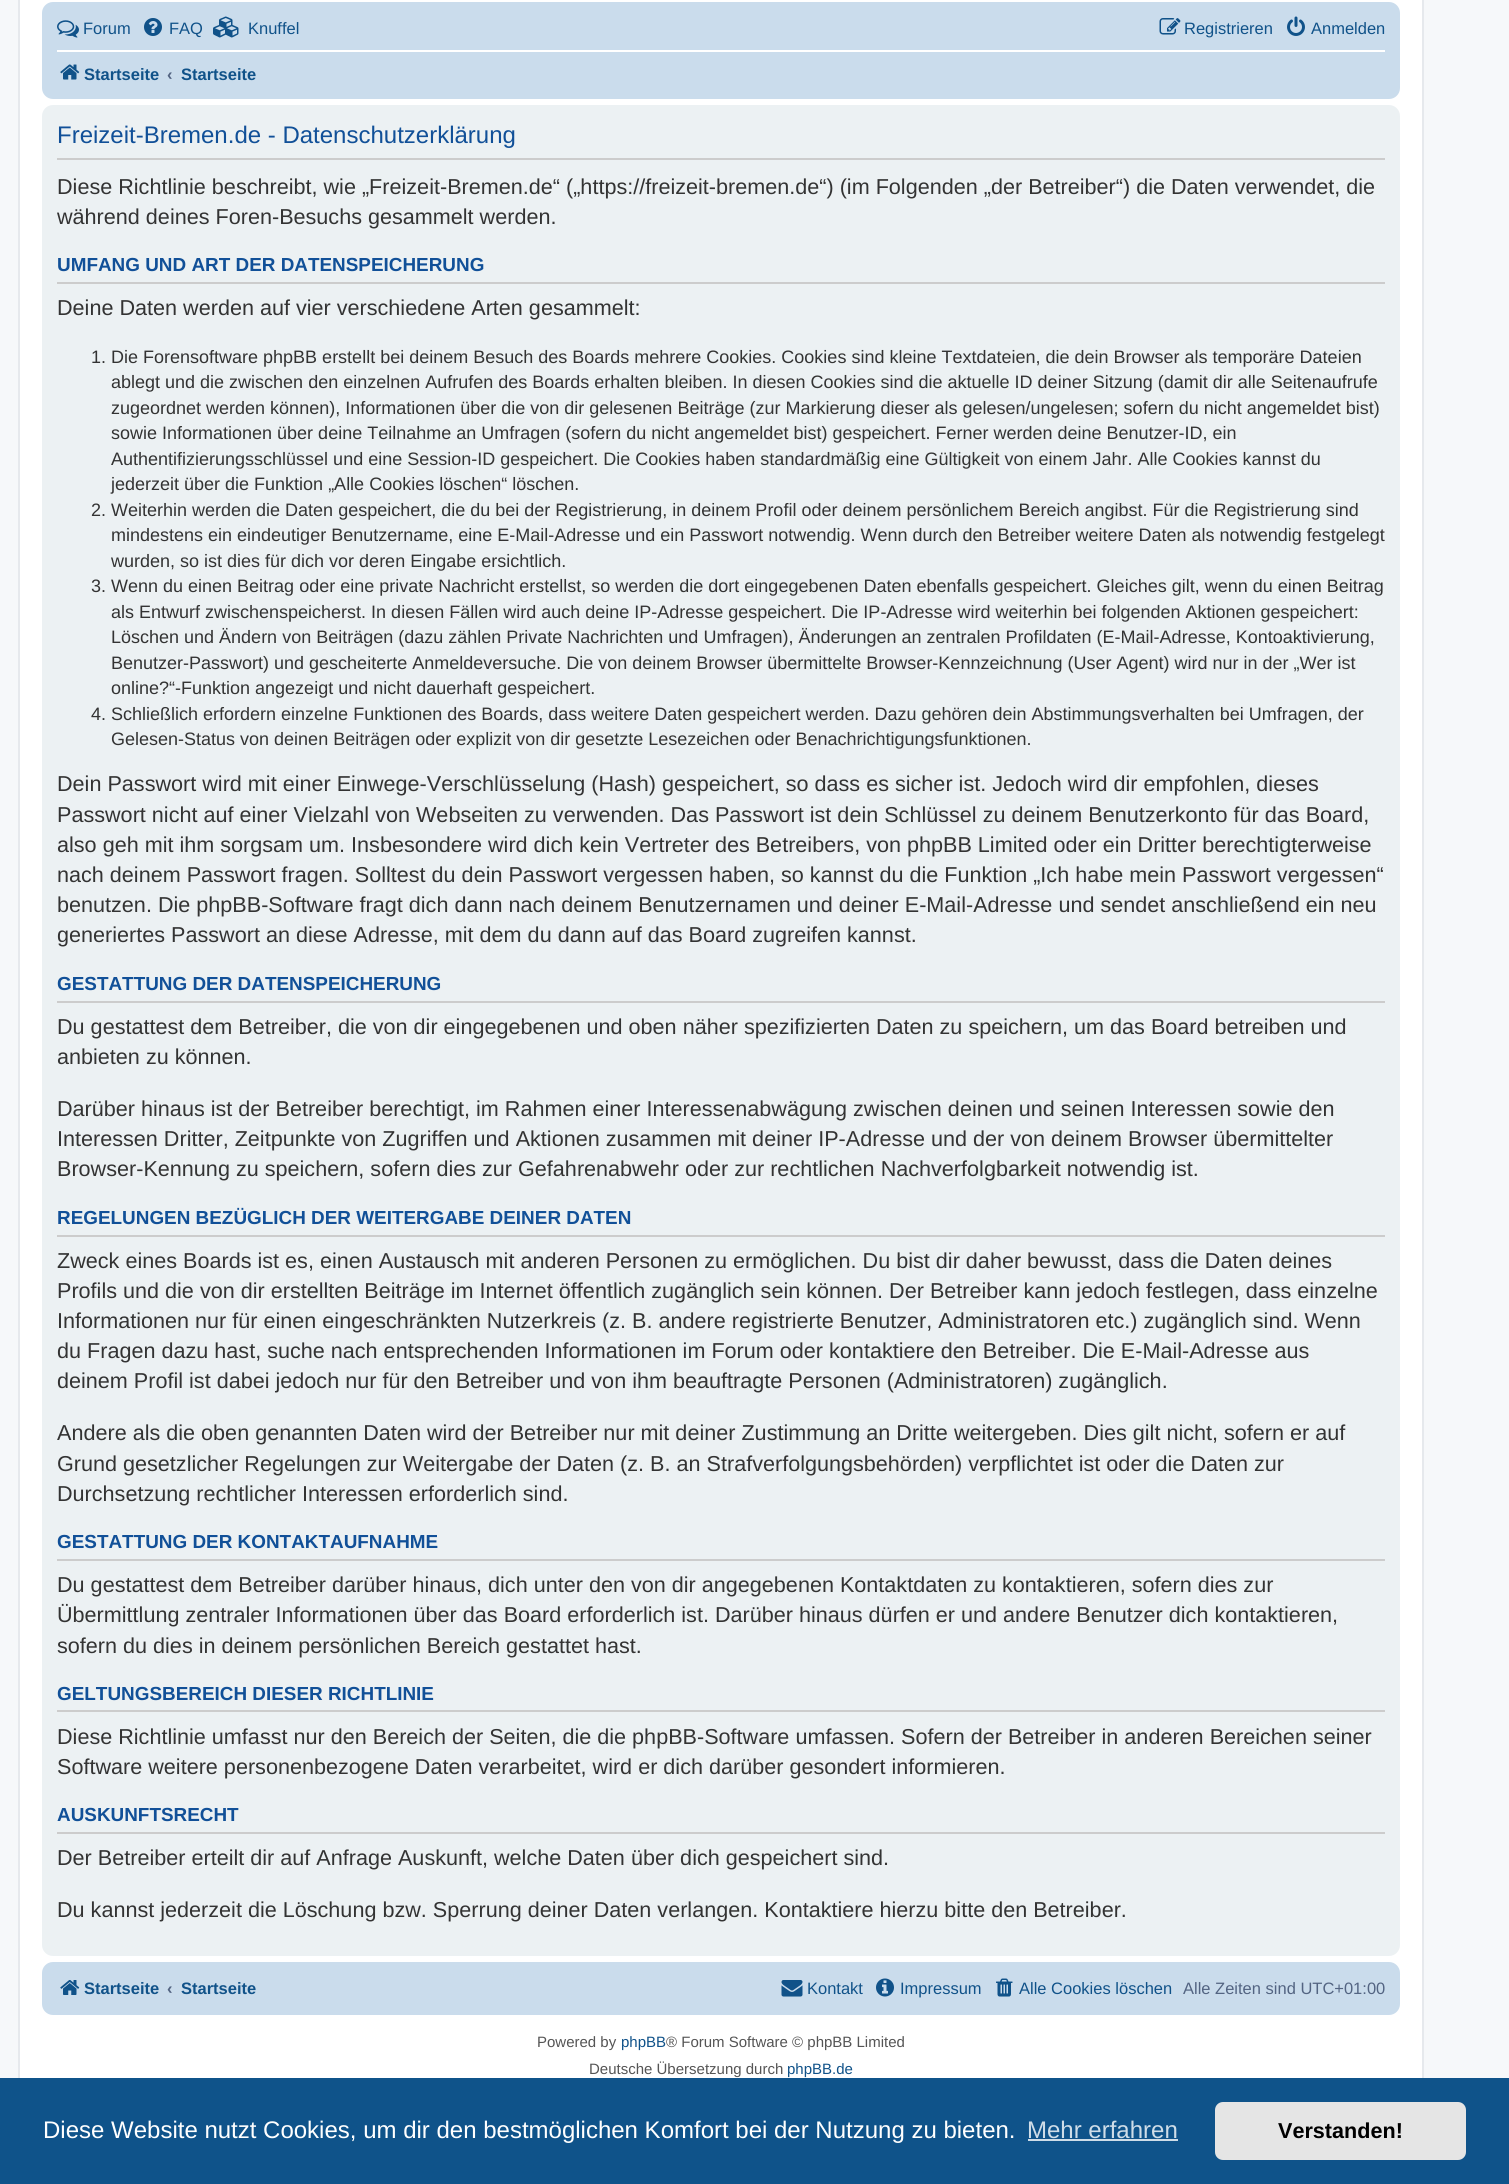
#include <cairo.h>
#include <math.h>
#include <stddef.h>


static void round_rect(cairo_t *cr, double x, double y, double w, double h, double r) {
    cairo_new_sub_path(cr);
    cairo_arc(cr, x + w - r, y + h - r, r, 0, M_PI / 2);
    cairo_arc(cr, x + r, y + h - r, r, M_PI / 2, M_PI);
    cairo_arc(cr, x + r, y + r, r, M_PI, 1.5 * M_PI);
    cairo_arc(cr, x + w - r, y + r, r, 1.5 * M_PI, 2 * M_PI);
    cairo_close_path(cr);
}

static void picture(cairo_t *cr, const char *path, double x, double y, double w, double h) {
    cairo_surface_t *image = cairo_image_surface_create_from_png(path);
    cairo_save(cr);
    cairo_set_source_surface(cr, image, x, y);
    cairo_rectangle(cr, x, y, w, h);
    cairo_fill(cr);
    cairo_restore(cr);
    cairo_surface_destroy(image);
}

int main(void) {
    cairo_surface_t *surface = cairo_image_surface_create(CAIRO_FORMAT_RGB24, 1509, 2184);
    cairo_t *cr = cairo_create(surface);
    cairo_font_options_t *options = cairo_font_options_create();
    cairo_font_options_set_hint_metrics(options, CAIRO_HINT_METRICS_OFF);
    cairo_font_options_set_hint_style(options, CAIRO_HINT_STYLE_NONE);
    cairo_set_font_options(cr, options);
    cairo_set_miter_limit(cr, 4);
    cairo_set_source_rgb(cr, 0.961, 0.969, 0.98);
    cairo_paint(cr);
    cairo_set_source_rgb(cr, 1, 1, 1);
    cairo_rectangle(cr, 20, 0, 1402, 2078);
    cairo_fill(cr);
    cairo_rectangle(cr, 19, -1, 1404, 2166);
    cairo_set_source_rgb(cr, 0.902, 0.914, 0.929);
    cairo_stroke(cr);
    cairo_set_source_rgb(cr, 0.792, 0.863, 0.922);
    round_rect(cr, 42, 2, 1358, 97, 11);
    cairo_fill(cr);
    picture(cr, "img1.png", 57, 20, 22, 18);
    cairo_select_font_face(cr, "Liberation Sans", CAIRO_FONT_SLANT_NORMAL, CAIRO_FONT_WEIGHT_NORMAL);
    cairo_set_font_size(cr, 16.5);
    cairo_set_source_rgb(cr, 0.063, 0.322, 0.537);
    cairo_move_to(cr, 83, 34);
    cairo_show_text(cr, "Forum");
    picture(cr, "img2.png", 144, 18, 18, 18);
    cairo_move_to(cr, 169, 34);
    cairo_show_text(cr, "FAQ");
    picture(cr, "img3.png", 213, 16, 26, 22);
    cairo_move_to(cr, 248, 34);
    cairo_show_text(cr, "Knuffel");
    picture(cr, "img4.png", 1159, 18, 22, 17);
    cairo_move_to(cr, 1184, 34);
    cairo_show_text(cr, "Registrieren");
    picture(cr, "img5.png", 1287, 16, 18, 20);
    cairo_move_to(cr, 1311, 34);
    cairo_show_text(cr, "Anmelden");
    cairo_set_source_rgb(cr, 1, 1, 1);
    cairo_rectangle(cr, 57, 50, 1328, 2);
    cairo_fill(cr);
    picture(cr, "img6.png", 60, 64, 20, 16);
    cairo_select_font_face(cr, "Liberation Sans", CAIRO_FONT_SLANT_NORMAL, CAIRO_FONT_WEIGHT_BOLD);
    cairo_set_source_rgb(cr, 0.063, 0.322, 0.537);
    cairo_move_to(cr, 84, 80);
    cairo_show_text(cr, "Startseite");
    cairo_set_source_rgb(cr, 0.325, 0.392, 0.51);
    cairo_move_to(cr, 167, 80);
    cairo_show_text(cr, "‹");
    cairo_set_source_rgb(cr, 0.063, 0.322, 0.537);
    cairo_move_to(cr, 181, 80);
    cairo_show_text(cr, "Startseite");
    cairo_set_source_rgb(cr, 0.925, 0.945, 0.953);
    round_rect(cr, 42, 105, 1358, 1851, 11);
    cairo_fill(cr);
    cairo_set_source_rgb(cr, 0.8, 0.8, 0.8);
    cairo_rectangle(cr, 57, 158, 1328, 2);
    cairo_fill(cr);
    cairo_select_font_face(cr, "Liberation Sans", CAIRO_FONT_SLANT_NORMAL, CAIRO_FONT_WEIGHT_NORMAL);
    cairo_set_font_size(cr, 24);
    cairo_set_source_rgb(cr, 0.067, 0.314, 0.596);
    cairo_move_to(cr, 57, 143);
    cairo_show_text(cr, "Freizeit-Bremen.de - Datenschutzerklärung");
    cairo_set_font_size(cr, 21.6);
    cairo_set_source_rgb(cr, 0.2, 0.2, 0.2);
    cairo_move_to(cr, 57, 194);
    cairo_show_text(cr, "Diese Richtlinie beschreibt, wie „Freizeit-Bremen.de“ („https://freizeit-bremen.de“) (im Folgenden „der Betreiber“) die Daten verwendet, die");
    cairo_move_to(cr, 57, 224);
    cairo_show_text(cr, "während deines Foren-Besuchs gesammelt werden.");
    cairo_set_source_rgb(cr, 0.8, 0.8, 0.8);
    cairo_rectangle(cr, 57, 282, 1328, 2);
    cairo_fill(cr);
    cairo_select_font_face(cr, "Liberation Sans", CAIRO_FONT_SLANT_NORMAL, CAIRO_FONT_WEIGHT_BOLD);
    cairo_set_font_size(cr, 18.9);
    cairo_set_source_rgb(cr, 0.067, 0.314, 0.596);
    cairo_move_to(cr, 57, 271);
    cairo_show_text(cr, "UMFANG UND ART DER DATENSPEICHERUNG");
    cairo_select_font_face(cr, "Liberation Sans", CAIRO_FONT_SLANT_NORMAL, CAIRO_FONT_WEIGHT_NORMAL);
    cairo_set_font_size(cr, 21.6);
    cairo_set_source_rgb(cr, 0.2, 0.2, 0.2);
    cairo_move_to(cr, 57, 315);
    cairo_show_text(cr, "Deine Daten werden auf vier verschiedene Arten gesammelt:");
    cairo_set_font_size(cr, 18);
    cairo_move_to(cr, 91, 363);
    cairo_show_text(cr, "1. Die Forensoftware phpBB erstellt bei deinem Besuch des Boards mehrere Cookies. Cookies sind kleine Textdateien, die dein Browser als temporäre Dateien");
    cairo_move_to(cr, 111, 388);
    cairo_show_text(cr, "ablegt und die zwischen den einzelnen Aufrufen des Boards erhalten bleiben. In diesen Cookies sind die aktuelle ID deiner Sitzung (damit dir alle Seitenaufrufe");
    cairo_move_to(cr, 111, 414);
    cairo_show_text(cr, "zugeordnet werden können), Informationen über die von dir gelesenen Beiträge (zur Markierung dieser als gelesen/ungelesen; sofern du nicht angemeldet bist)");
    cairo_move_to(cr, 111, 439);
    cairo_show_text(cr, "sowie Informationen über deine Teilnahme an Umfragen (sofern du nicht angemeldet bist) gespeichert. Ferner werden deine Benutzer-ID, ein");
    cairo_move_to(cr, 111, 465);
    cairo_show_text(cr, "Authentifizierungsschlüssel und eine Session-ID gespeichert. Die Cookies haben standardmäßig eine Gültigkeit von einem Jahr. Alle Cookies kannst du");
    cairo_move_to(cr, 111, 490);
    cairo_show_text(cr, "jederzeit über die Funktion „Alle Cookies löschen“ löschen.");
    cairo_move_to(cr, 91, 516);
    cairo_show_text(cr, "2. Weiterhin werden die Daten gespeichert, die du bei der Registrierung, in deinem Profil oder deinem persönlichem Bereich angibst. Für die Registrierung sind");
    cairo_move_to(cr, 111, 541);
    cairo_show_text(cr, "mindestens ein eindeutiger Benutzername, eine E-Mail-Adresse und ein Passwort notwendig. Wenn durch den Betreiber weitere Daten als notwendig festgelegt");
    cairo_move_to(cr, 111, 567);
    cairo_show_text(cr, "wurden, so ist dies für dich vor deren Eingabe ersichtlich.");
    cairo_move_to(cr, 91, 592);
    cairo_show_text(cr, "3. Wenn du einen Beitrag oder eine private Nachricht erstellst, so werden die dort eingegebenen Daten ebenfalls gespeichert. Gleiches gilt, wenn du einen Beitrag");
    cairo_move_to(cr, 111, 618);
    cairo_show_text(cr, "als Entwurf zwischenspeicherst. In diesen Fällen wird auch deine IP-Adresse gespeichert. Die IP-Adresse wird weiterhin bei folgenden Aktionen gespeichert:");
    cairo_move_to(cr, 111, 643);
    cairo_show_text(cr, "Löschen und Ändern von Beiträgen (dazu zählen Private Nachrichten und Umfragen), Änderungen an zentralen Profildaten (E-Mail-Adresse, Kontoaktivierung,");
    cairo_move_to(cr, 111, 669);
    cairo_show_text(cr, "Benutzer-Passwort) und gescheiterte Anmeldeversuche. Die von deinem Browser übermittelte Browser-Kennzeichnung (User Agent) wird nur in der „Wer ist");
    cairo_move_to(cr, 111, 694);
    cairo_show_text(cr, "online?“-Funktion angezeigt und nicht dauerhaft gespeichert.");
    cairo_move_to(cr, 91, 720);
    cairo_show_text(cr, "4. Schließlich erfordern einzelne Funktionen des Boards, dass weitere Daten gespeichert werden. Dazu gehören dein Abstimmungsverhalten bei Umfragen, der");
    cairo_move_to(cr, 111, 745);
    cairo_show_text(cr, "Gelesen-Status von deinen Beiträgen oder explizit von dir gesetzte Lesezeichen oder Benachrichtigungsfunktionen.");
    cairo_set_font_size(cr, 21.6);
    cairo_move_to(cr, 57, 791);
    cairo_show_text(cr, "Dein Passwort wird mit einer Einwege-Verschlüsselung (Hash) gespeichert, so dass es sicher ist. Jedoch wird dir empfohlen, dieses");
    cairo_move_to(cr, 57, 822);
    cairo_show_text(cr, "Passwort nicht auf einer Vielzahl von Webseiten zu verwenden. Das Passwort ist dein Schlüssel zu deinem Benutzerkonto für das Board,");
    cairo_move_to(cr, 57, 852);
    cairo_show_text(cr, "also geh mit ihm sorgsam um. Insbesondere wird dich kein Vertreter des Betreibers, von phpBB Limited oder ein Dritter berechtigterweise");
    cairo_move_to(cr, 57, 882);
    cairo_show_text(cr, "nach deinem Passwort fragen. Solltest du dein Passwort vergessen haben, so kannst du die Funktion „Ich habe mein Passwort vergessen“");
    cairo_move_to(cr, 57, 912);
    cairo_show_text(cr, "benutzen. Die phpBB-Software fragt dich dann nach deinem Benutzernamen und deiner E-Mail-Adresse und sendet anschließend ein neu");
    cairo_move_to(cr, 57, 942);
    cairo_show_text(cr, "generiertes Passwort an diese Adresse, mit dem du dann auf das Board zugreifen kannst.");
    cairo_set_source_rgb(cr, 0.8, 0.8, 0.8);
    cairo_rectangle(cr, 57, 1001, 1328, 2);
    cairo_fill(cr);
    cairo_select_font_face(cr, "Liberation Sans", CAIRO_FONT_SLANT_NORMAL, CAIRO_FONT_WEIGHT_BOLD);
    cairo_set_font_size(cr, 18.9);
    cairo_set_source_rgb(cr, 0.067, 0.314, 0.596);
    cairo_move_to(cr, 57, 990);
    cairo_show_text(cr, "GESTATTUNG DER DATENSPEICHERUNG");
    cairo_select_font_face(cr, "Liberation Sans", CAIRO_FONT_SLANT_NORMAL, CAIRO_FONT_WEIGHT_NORMAL);
    cairo_set_font_size(cr, 21.6);
    cairo_set_source_rgb(cr, 0.2, 0.2, 0.2);
    cairo_move_to(cr, 57, 1034);
    cairo_show_text(cr, "Du gestattest dem Betreiber, die von dir eingegebenen und oben näher spezifizierten Daten zu speichern, um das Board betreiben und");
    cairo_move_to(cr, 57, 1064);
    cairo_show_text(cr, "anbieten zu können.");
    cairo_move_to(cr, 57, 1116);
    cairo_show_text(cr, "Darüber hinaus ist der Betreiber berechtigt, im Rahmen einer Interessenabwägung zwischen deinen und seinen Interessen sowie den");
    cairo_move_to(cr, 57, 1146);
    cairo_show_text(cr, "Interessen Dritter, Zeitpunkte von Zugriffen und Aktionen zusammen mit deiner IP-Adresse und der von deinem Browser übermittelter");
    cairo_move_to(cr, 57, 1176);
    cairo_show_text(cr, "Browser-Kennung zu speichern, sofern dies zur Gefahrenabwehr oder zur rechtlichen Nachverfolgbarkeit notwendig ist.");
    cairo_set_source_rgb(cr, 0.8, 0.8, 0.8);
    cairo_rectangle(cr, 57, 1235, 1328, 2);
    cairo_fill(cr);
    cairo_select_font_face(cr, "Liberation Sans", CAIRO_FONT_SLANT_NORMAL, CAIRO_FONT_WEIGHT_BOLD);
    cairo_set_font_size(cr, 18.9);
    cairo_set_source_rgb(cr, 0.067, 0.314, 0.596);
    cairo_move_to(cr, 57, 1224);
    cairo_show_text(cr, "REGELUNGEN BEZÜGLICH DER WEITERGABE DEINER DATEN");
    cairo_select_font_face(cr, "Liberation Sans", CAIRO_FONT_SLANT_NORMAL, CAIRO_FONT_WEIGHT_NORMAL);
    cairo_set_font_size(cr, 21.6);
    cairo_set_source_rgb(cr, 0.2, 0.2, 0.2);
    cairo_move_to(cr, 57, 1268);
    cairo_show_text(cr, "Zweck eines Boards ist es, einen Austausch mit anderen Personen zu ermöglichen. Du bist dir daher bewusst, dass die Daten deines");
    cairo_move_to(cr, 57, 1298);
    cairo_show_text(cr, "Profils und die von dir erstellten Beiträge im Internet öffentlich zugänglich sein können. Der Betreiber kann jedoch festlegen, dass einzelne");
    cairo_move_to(cr, 57, 1328);
    cairo_show_text(cr, "Informationen nur für einen eingeschränkten Nutzerkreis (z. B. andere registrierte Benutzer, Administratoren etc.) zugänglich sind. Wenn");
    cairo_move_to(cr, 57, 1358);
    cairo_show_text(cr, "du Fragen dazu hast, suche nach entsprechenden Informationen im Forum oder kontaktiere den Betreiber. Die E-Mail-Adresse aus");
    cairo_move_to(cr, 57, 1388);
    cairo_show_text(cr, "deinem Profil ist dabei jedoch nur für den Betreiber und von ihm beauftragte Personen (Administratoren) zugänglich.");
    cairo_move_to(cr, 57, 1440);
    cairo_show_text(cr, "Andere als die oben genannten Daten wird der Betreiber nur mit deiner Zustimmung an Dritte weitergeben. Dies gilt nicht, sofern er auf");
    cairo_move_to(cr, 57, 1471);
    cairo_show_text(cr, "Grund gesetzlicher Regelungen zur Weitergabe der Daten (z. B. an Strafverfolgungsbehörden) verpflichtet ist oder die Daten zur");
    cairo_move_to(cr, 57, 1501);
    cairo_show_text(cr, "Durchsetzung rechtlicher Interessen erforderlich sind.");
    cairo_set_source_rgb(cr, 0.8, 0.8, 0.8);
    cairo_rectangle(cr, 57, 1559, 1328, 2);
    cairo_fill(cr);
    cairo_select_font_face(cr, "Liberation Sans", CAIRO_FONT_SLANT_NORMAL, CAIRO_FONT_WEIGHT_BOLD);
    cairo_set_font_size(cr, 18.9);
    cairo_set_source_rgb(cr, 0.067, 0.314, 0.596);
    cairo_move_to(cr, 57, 1548);
    cairo_show_text(cr, "GESTATTUNG DER KONTAKTAUFNAHME");
    cairo_select_font_face(cr, "Liberation Sans", CAIRO_FONT_SLANT_NORMAL, CAIRO_FONT_WEIGHT_NORMAL);
    cairo_set_font_size(cr, 21.6);
    cairo_set_source_rgb(cr, 0.2, 0.2, 0.2);
    cairo_move_to(cr, 57, 1592);
    cairo_show_text(cr, "Du gestattest dem Betreiber darüber hinaus, dich unter den von dir angegebenen Kontaktdaten zu kontaktieren, sofern dies zur");
    cairo_move_to(cr, 57, 1622);
    cairo_show_text(cr, "Übermittlung zentraler Informationen über das Board erforderlich ist. Darüber hinaus dürfen er und andere Benutzer dich kontaktieren,");
    cairo_move_to(cr, 57, 1653);
    cairo_show_text(cr, "sofern du dies in deinem persönlichen Bereich gestattet hast.");
    cairo_set_source_rgb(cr, 0.8, 0.8, 0.8);
    cairo_rectangle(cr, 57, 1710, 1328, 2);
    cairo_fill(cr);
    cairo_select_font_face(cr, "Liberation Sans", CAIRO_FONT_SLANT_NORMAL, CAIRO_FONT_WEIGHT_BOLD);
    cairo_set_font_size(cr, 18.9);
    cairo_set_source_rgb(cr, 0.067, 0.314, 0.596);
    cairo_move_to(cr, 57, 1700);
    cairo_show_text(cr, "GELTUNGSBEREICH DIESER RICHTLINIE");
    cairo_select_font_face(cr, "Liberation Sans", CAIRO_FONT_SLANT_NORMAL, CAIRO_FONT_WEIGHT_NORMAL);
    cairo_set_font_size(cr, 21.6);
    cairo_set_source_rgb(cr, 0.2, 0.2, 0.2);
    cairo_move_to(cr, 57, 1744);
    cairo_show_text(cr, "Diese Richtlinie umfasst nur den Bereich der Seiten, die die phpBB-Software umfassen. Sofern der Betreiber in anderen Bereichen seiner");
    cairo_move_to(cr, 57, 1774);
    cairo_show_text(cr, "Software weitere personenbezogene Daten verarbeitet, wird er dich darüber gesondert informieren.");
    cairo_set_source_rgb(cr, 0.8, 0.8, 0.8);
    cairo_rectangle(cr, 57, 1832, 1328, 2);
    cairo_fill(cr);
    cairo_select_font_face(cr, "Liberation Sans", CAIRO_FONT_SLANT_NORMAL, CAIRO_FONT_WEIGHT_BOLD);
    cairo_set_font_size(cr, 18.9);
    cairo_set_source_rgb(cr, 0.067, 0.314, 0.596);
    cairo_move_to(cr, 57, 1821);
    cairo_show_text(cr, "AUSKUNFTSRECHT");
    cairo_select_font_face(cr, "Liberation Sans", CAIRO_FONT_SLANT_NORMAL, CAIRO_FONT_WEIGHT_NORMAL);
    cairo_set_font_size(cr, 21.6);
    cairo_set_source_rgb(cr, 0.2, 0.2, 0.2);
    cairo_move_to(cr, 57, 1865);
    cairo_show_text(cr, "Der Betreiber erteilt dir auf Anfrage Auskunft, welche Daten über dich gespeichert sind.");
    cairo_move_to(cr, 57, 1917);
    cairo_show_text(cr, "Du kannst jederzeit die Löschung bzw. Sperrung deiner Daten verlangen. Kontaktiere hierzu bitte den Betreiber.");
    cairo_set_source_rgb(cr, 0.792, 0.863, 0.922);
    round_rect(cr, 42, 1962, 1358, 53, 11);
    cairo_fill(cr);
    picture(cr, "img7.png", 60, 1980, 20, 15);
    cairo_select_font_face(cr, "Liberation Sans", CAIRO_FONT_SLANT_NORMAL, CAIRO_FONT_WEIGHT_BOLD);
    cairo_set_font_size(cr, 16.5);
    cairo_set_source_rgb(cr, 0.063, 0.322, 0.537);
    cairo_move_to(cr, 84, 1994);
    cairo_show_text(cr, "Startseite");
    cairo_set_source_rgb(cr, 0.325, 0.392, 0.51);
    cairo_move_to(cr, 167, 1994);
    cairo_show_text(cr, "‹");
    cairo_set_source_rgb(cr, 0.063, 0.322, 0.537);
    cairo_move_to(cr, 181, 1994);
    cairo_show_text(cr, "Startseite");
    picture(cr, "img8.png", 781, 1980, 22, 17);
    cairo_select_font_face(cr, "Liberation Sans", CAIRO_FONT_SLANT_NORMAL, CAIRO_FONT_WEIGHT_NORMAL);
    cairo_move_to(cr, 807, 1994);
    cairo_show_text(cr, "Kontakt");
    picture(cr, "img9.png", 876, 1978, 18, 19);
    cairo_move_to(cr, 900, 1994);
    cairo_show_text(cr, "Impressum");
    picture(cr, "img10.png", 996, 1978, 17, 19);
    cairo_move_to(cr, 1019, 1994);
    cairo_show_text(cr, "Alle Cookies löschen");
    cairo_set_source_rgb(cr, 0.325, 0.392, 0.51);
    cairo_move_to(cr, 1183, 1994);
    cairo_show_text(cr, "Alle Zeiten sind UTC+01:00");
    cairo_set_font_size(cr, 15);
    cairo_set_source_rgb(cr, 0.333, 0.333, 0.333);
    cairo_move_to(cr, 537, 2047);
    cairo_show_text(cr, "Powered by");
    cairo_set_source_rgb(cr, 0.063, 0.322, 0.537);
    cairo_move_to(cr, 621, 2047);
    cairo_show_text(cr, "phpBB");
    cairo_set_source_rgb(cr, 0.333, 0.333, 0.333);
    cairo_move_to(cr, 666, 2047);
    cairo_show_text(cr, "® Forum Software © phpBB Limited");
    cairo_move_to(cr, 589, 2074);
    cairo_show_text(cr, "Deutsche Übersetzung durch");
    cairo_set_source_rgb(cr, 0.063, 0.322, 0.537);
    cairo_move_to(cr, 787, 2074);
    cairo_show_text(cr, "phpBB.de");
    cairo_set_source_rgb(cr, 0.059, 0.325, 0.541);
    cairo_rectangle(cr, 0, 2078, 1509, 106);
    cairo_fill(cr);
    cairo_set_font_size(cr, 24);
    cairo_set_source_rgb(cr, 1, 1, 1);
    cairo_move_to(cr, 43, 2138);
    cairo_show_text(cr, "Diese Website nutzt Cookies, um dir den bestmöglichen Komfort bei der Nutzung zu bieten.");
    cairo_set_source_rgb(cr, 0.812, 0.867, 0.91);
    cairo_move_to(cr, 1027, 2138);
    cairo_show_text(cr, "Mehr erfahren");
    cairo_rectangle(cr, 1028, 2139, 150, 2);
    cairo_fill(cr);
    cairo_set_source_rgb(cr, 0.898, 0.898, 0.898);
    round_rect(cr, 1215, 2102, 251, 58, 8);
    cairo_fill(cr);
    cairo_select_font_face(cr, "Liberation Sans", CAIRO_FONT_SLANT_NORMAL, CAIRO_FONT_WEIGHT_BOLD);
    cairo_set_font_size(cr, 21.6);
    cairo_set_source_rgb(cr, 0, 0, 0);
    cairo_move_to(cr, 1278, 2138);
    cairo_show_text(cr, "Verstanden!");
    cairo_surface_write_to_png(surface, "page.png");
    cairo_font_options_destroy(options);
    cairo_destroy(cr);
    cairo_surface_destroy(surface);
    return 0;
}
